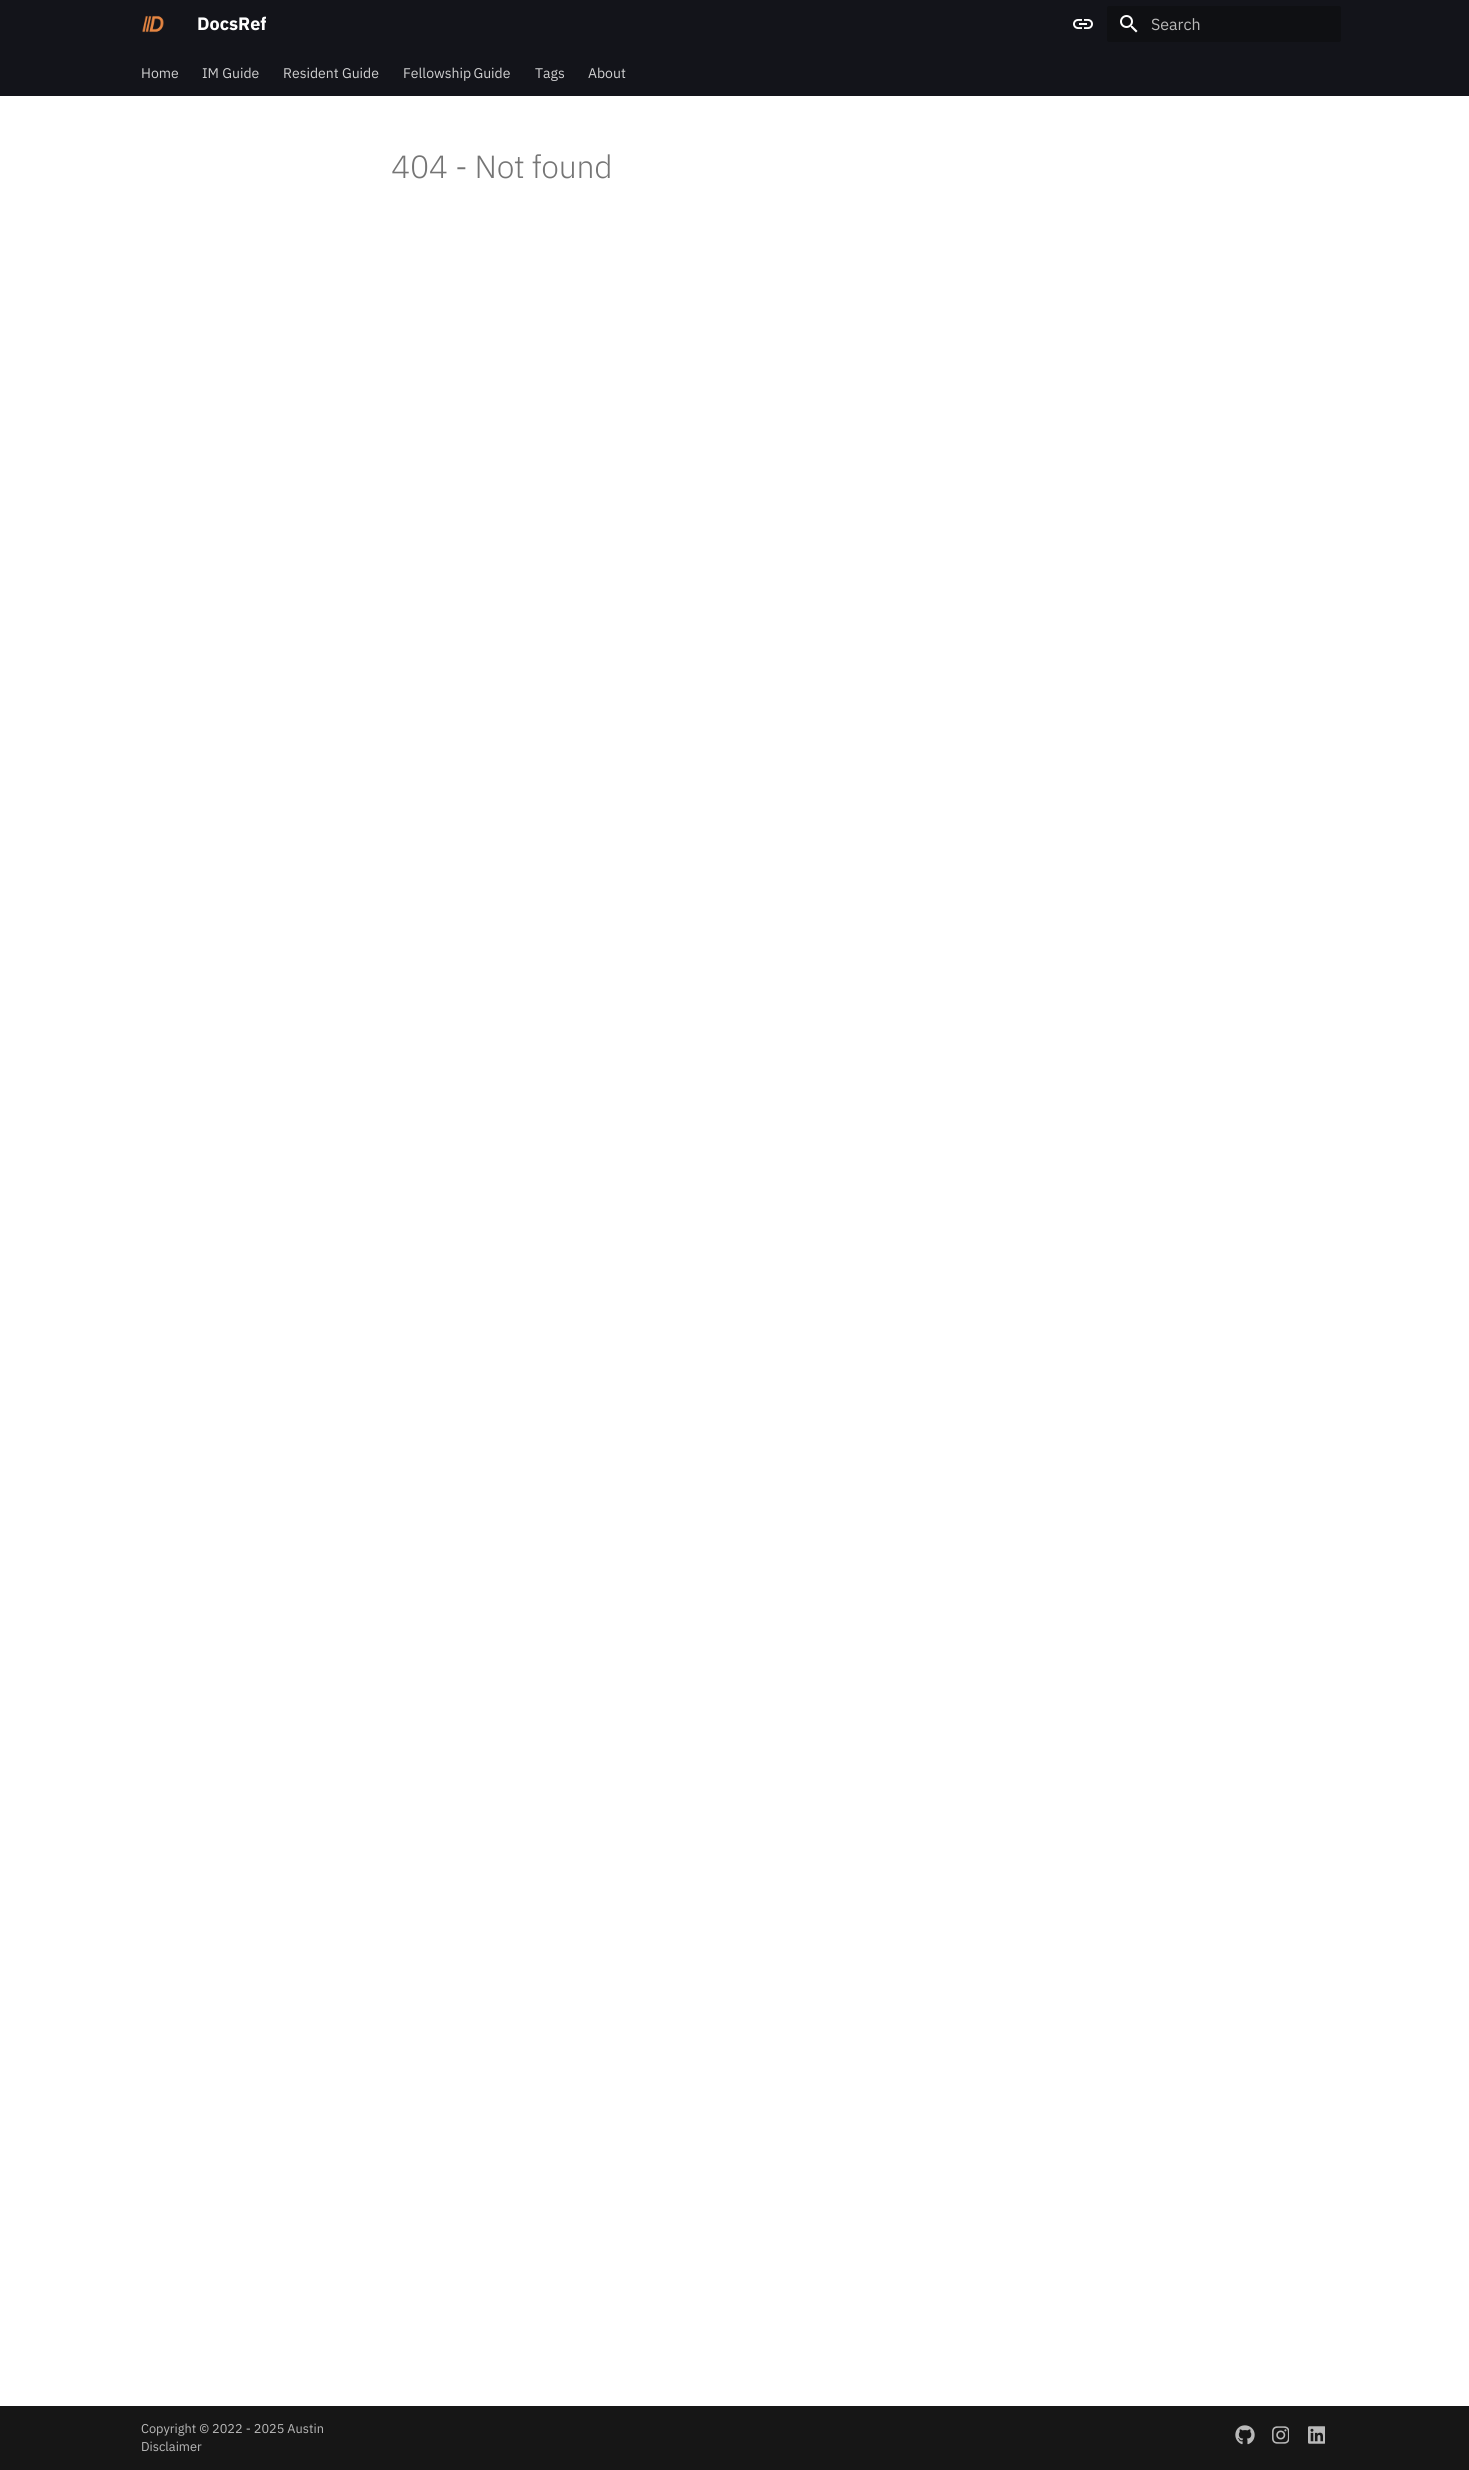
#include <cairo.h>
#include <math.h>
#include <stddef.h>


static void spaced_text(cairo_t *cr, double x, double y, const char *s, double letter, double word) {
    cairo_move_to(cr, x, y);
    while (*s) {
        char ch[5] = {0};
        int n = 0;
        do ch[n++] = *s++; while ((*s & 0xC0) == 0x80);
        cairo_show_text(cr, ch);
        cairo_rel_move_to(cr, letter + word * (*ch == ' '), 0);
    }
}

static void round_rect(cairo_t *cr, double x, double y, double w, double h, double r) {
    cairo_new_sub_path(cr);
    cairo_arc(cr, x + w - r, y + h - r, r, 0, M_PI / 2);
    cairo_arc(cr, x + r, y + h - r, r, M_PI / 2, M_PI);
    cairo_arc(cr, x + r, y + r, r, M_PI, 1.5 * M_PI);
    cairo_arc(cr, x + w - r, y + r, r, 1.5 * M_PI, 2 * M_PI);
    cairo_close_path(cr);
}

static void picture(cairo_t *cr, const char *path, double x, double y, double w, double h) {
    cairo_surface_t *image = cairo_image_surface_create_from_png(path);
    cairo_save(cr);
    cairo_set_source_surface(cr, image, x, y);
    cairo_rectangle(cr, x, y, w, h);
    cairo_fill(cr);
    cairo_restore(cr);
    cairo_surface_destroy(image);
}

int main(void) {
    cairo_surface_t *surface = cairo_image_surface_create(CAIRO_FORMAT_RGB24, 1469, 2470);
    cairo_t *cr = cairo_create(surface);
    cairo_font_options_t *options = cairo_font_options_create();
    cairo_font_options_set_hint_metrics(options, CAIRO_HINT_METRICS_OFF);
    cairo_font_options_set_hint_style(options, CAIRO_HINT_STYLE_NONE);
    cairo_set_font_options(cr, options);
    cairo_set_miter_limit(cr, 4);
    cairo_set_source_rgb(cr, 1, 1, 1);
    cairo_paint(cr);
    cairo_set_source_rgb(cr, 0.078, 0.082, 0.102);
    cairo_rectangle(cr, 0, 0, 1469, 96);
    cairo_fill(cr);
    picture(cr, "img1.png", 142, 15, 22, 18);
    cairo_save(cr);
    cairo_rectangle(cr, 197, 0, 69, 48);
    cairo_clip(cr);
    cairo_select_font_face(cr, "IBM Plex Sans", CAIRO_FONT_SLANT_NORMAL, CAIRO_FONT_WEIGHT_BOLD);
    cairo_set_font_size(cr, 18);
    cairo_set_source_rgb(cr, 1, 1, 1);
    cairo_move_to(cr, 197, 30);
    cairo_show_text(cr, "DocsRef");
    cairo_restore(cr);
    picture(cr, "img2.png", 1073, 19, 20, 10);
    cairo_set_source_rgb(cr, 0.059, 0.063, 0.075);
    round_rect(cr, 1107, 6, 234, 36, 2);
    cairo_fill(cr);
    picture(cr, "img3.png", 1120, 15, 18, 18);
    cairo_select_font_face(cr, "IBM Plex Sans", CAIRO_FONT_SLANT_NORMAL, CAIRO_FONT_WEIGHT_NORMAL);
    cairo_set_font_size(cr, 16);
    cairo_set_source_rgb(cr, 0.725, 0.725, 0.725);
    cairo_move_to(cr, 1151, 30);
    cairo_show_text(cr, "Search");
    cairo_set_font_size(cr, 14);
    cairo_set_source_rgb(cr, 0.816, 0.816, 0.82);
    cairo_move_to(cr, 141, 78);
    cairo_show_text(cr, "Home");
    cairo_move_to(cr, 202, 78);
    cairo_show_text(cr, "IM Guide");
    cairo_move_to(cr, 283, 78);
    cairo_show_text(cr, "Resident Guide");
    spaced_text(cr, 403, 78, "Fellowship Guide", 0, -1);
    cairo_move_to(cr, 535, 78);
    cairo_show_text(cr, "Tags");
    cairo_move_to(cr, 588, 78);
    cairo_show_text(cr, "About");
    cairo_select_font_face(cr, "IBM Plex Sans Light", CAIRO_FONT_SLANT_NORMAL, CAIRO_FONT_WEIGHT_NORMAL);
    cairo_set_font_size(cr, 32);
    cairo_set_source_rgb(cr, 0.459, 0.459, 0.459);
    spaced_text(cr, 391, 178, "404 - Not found", -0.3, 0);
    cairo_set_source_rgb(cr, 0.086, 0.086, 0.086);
    cairo_rectangle(cr, 0, 2406, 1469, 64);
    cairo_fill(cr);
    cairo_select_font_face(cr, "IBM Plex Sans", CAIRO_FONT_SLANT_NORMAL, CAIRO_FONT_WEIGHT_NORMAL);
    cairo_set_font_size(cr, 12.75);
    cairo_set_source_rgb(cr, 0.725, 0.725, 0.725);
    cairo_move_to(cr, 141, 2433);
    cairo_show_text(cr, "Copyright © 2022 - 2025 Austin");
    cairo_move_to(cr, 141, 2451);
    cairo_show_text(cr, "Disclaimer");
    picture(cr, "img4.png", 1235, 2425, 20, 20);
    picture(cr, "img5.png", 1272, 2426, 17, 18);
    picture(cr, "img6.png", 1308, 2426, 17, 18);
    cairo_surface_write_to_png(surface, "page.png");
    cairo_font_options_destroy(options);
    cairo_destroy(cr);
    cairo_surface_destroy(surface);
    return 0;
}
